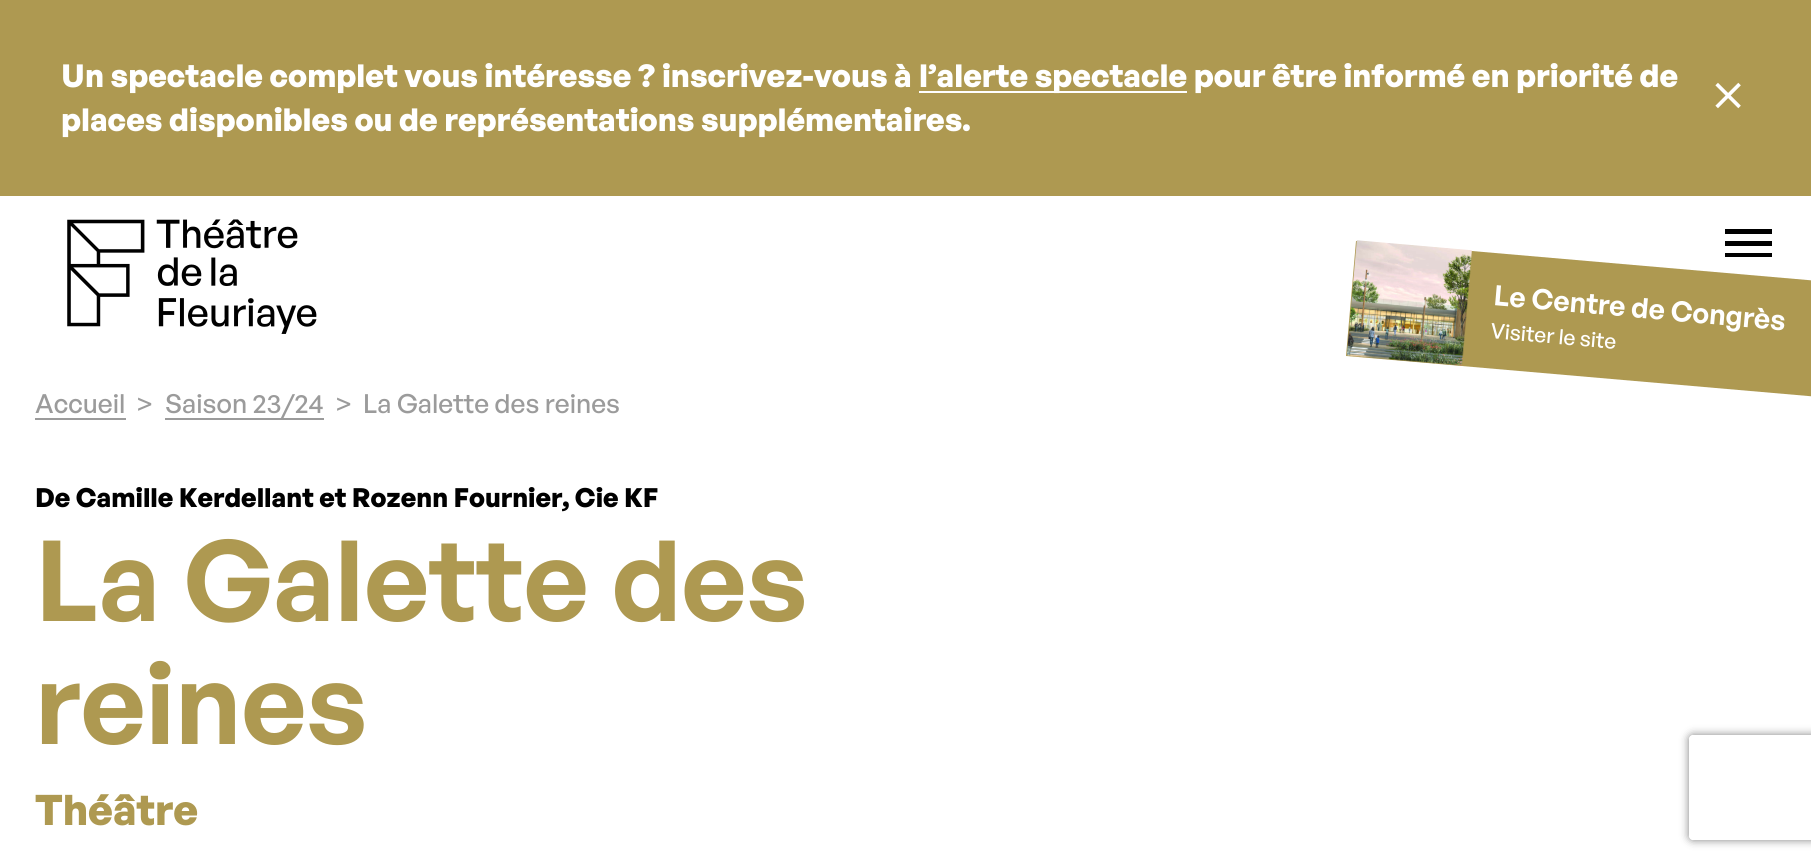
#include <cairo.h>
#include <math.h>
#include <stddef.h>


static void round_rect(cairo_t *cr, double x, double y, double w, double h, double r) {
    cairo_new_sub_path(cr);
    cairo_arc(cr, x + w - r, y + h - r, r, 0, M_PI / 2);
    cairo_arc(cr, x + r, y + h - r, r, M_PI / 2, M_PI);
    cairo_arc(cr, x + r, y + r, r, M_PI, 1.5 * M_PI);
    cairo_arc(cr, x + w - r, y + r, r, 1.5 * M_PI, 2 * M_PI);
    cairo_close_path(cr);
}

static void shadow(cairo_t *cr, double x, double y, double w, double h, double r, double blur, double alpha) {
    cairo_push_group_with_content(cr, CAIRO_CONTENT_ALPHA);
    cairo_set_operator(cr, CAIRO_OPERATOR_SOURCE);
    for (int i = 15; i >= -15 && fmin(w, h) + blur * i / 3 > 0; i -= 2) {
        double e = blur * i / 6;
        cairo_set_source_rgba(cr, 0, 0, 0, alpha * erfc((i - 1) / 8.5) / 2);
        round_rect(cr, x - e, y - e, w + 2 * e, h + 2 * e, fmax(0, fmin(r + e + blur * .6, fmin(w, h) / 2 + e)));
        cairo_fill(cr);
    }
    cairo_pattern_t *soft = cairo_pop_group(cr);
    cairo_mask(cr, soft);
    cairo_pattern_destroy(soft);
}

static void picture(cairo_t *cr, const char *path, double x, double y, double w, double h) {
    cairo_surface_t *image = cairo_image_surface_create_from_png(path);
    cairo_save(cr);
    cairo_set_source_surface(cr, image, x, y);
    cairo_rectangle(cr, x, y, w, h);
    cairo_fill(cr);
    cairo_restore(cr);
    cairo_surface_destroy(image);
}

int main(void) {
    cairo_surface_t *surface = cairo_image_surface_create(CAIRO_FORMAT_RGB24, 1811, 863);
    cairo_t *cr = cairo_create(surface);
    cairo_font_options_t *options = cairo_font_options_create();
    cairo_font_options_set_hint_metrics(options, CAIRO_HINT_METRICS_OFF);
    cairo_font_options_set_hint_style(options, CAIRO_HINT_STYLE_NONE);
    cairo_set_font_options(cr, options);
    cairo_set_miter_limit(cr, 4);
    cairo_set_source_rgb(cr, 1, 1, 1);
    cairo_paint(cr);
    cairo_set_source_rgb(cr, 0.682, 0.6, 0.318);
    cairo_rectangle(cr, 0, 0, 1811, 196);
    cairo_fill(cr);
    cairo_select_font_face(cr, "General Sans", CAIRO_FONT_SLANT_NORMAL, CAIRO_FONT_WEIGHT_BOLD);
    cairo_set_font_size(cr, 31.5);
    cairo_set_source_rgb(cr, 1, 1, 1);
    cairo_move_to(cr, 61, 87);
    cairo_show_text(cr, "Un spectacle complet vous intéresse ? inscrivez-vous à");
    cairo_rectangle(cr, 919, 91, 268, 2);
    cairo_fill(cr);
    cairo_move_to(cr, 919, 87);
    cairo_show_text(cr, "l’alerte spectacle pour être informé en priorité de");
    cairo_move_to(cr, 61, 131);
    cairo_show_text(cr, "places disponibles ou de représentations supplémentaires.");
    picture(cr, "img1.png", 1715, 82, 26, 27);
    picture(cr, "img2.png", 67, 219, 250, 115);
    cairo_set_source_rgb(cr, 0, 0, 0);
    cairo_new_path(cr);
    cairo_move_to(cr, 1725, 229);
    cairo_line_to(cr, 1772, 229);
    cairo_line_to(cr, 1772, 234);
    cairo_line_to(cr, 1725, 234);
    cairo_close_path(cr);
    cairo_move_to(cr, 1725, 241);
    cairo_line_to(cr, 1772, 241);
    cairo_line_to(cr, 1772, 246);
    cairo_line_to(cr, 1725, 246);
    cairo_close_path(cr);
    cairo_move_to(cr, 1725, 253);
    cairo_line_to(cr, 1772, 253);
    cairo_line_to(cr, 1772, 257);
    cairo_line_to(cr, 1725, 257);
    cairo_close_path(cr);
    cairo_fill(cr);
    cairo_set_source_rgb(cr, 0.682, 0.6, 0.318);
    cairo_new_path(cr);
    cairo_move_to(cr, 1356, 241);
    cairo_line_to(cr, 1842, 283);
    cairo_line_to(cr, 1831, 398);
    cairo_line_to(cr, 1346, 356);
    cairo_close_path(cr);
    cairo_fill(cr);
    picture(cr, "img3.png", 1346, 240, 126, 126);
    cairo_select_font_face(cr, "General Sans SemiBold", CAIRO_FONT_SLANT_NORMAL, CAIRO_FONT_WEIGHT_NORMAL);
    cairo_set_font_size(cr, 28);
    cairo_set_source_rgb(cr, 1, 1, 1);
    cairo_save(cr);
    cairo_translate(cr, 1493, 305);
    cairo_rotate(cr, 5 * M_PI / 180);
    cairo_move_to(cr, 0, 0);
    cairo_show_text(cr, "Le Centre de Congrès");
    cairo_restore(cr);
    cairo_select_font_face(cr, "General Sans Medium", CAIRO_FONT_SLANT_NORMAL, CAIRO_FONT_WEIGHT_NORMAL);
    cairo_set_font_size(cr, 21);
    cairo_save(cr);
    cairo_translate(cr, 1490, 338);
    cairo_rotate(cr, 5 * M_PI / 180);
    cairo_move_to(cr, 0, 0);
    cairo_show_text(cr, "Visiter le site");
    cairo_restore(cr);
    cairo_set_font_size(cr, 26.25);
    cairo_set_source_rgb(cr, 0.608, 0.608, 0.608);
    cairo_move_to(cr, 35, 413);
    cairo_show_text(cr, "Accueil");
    cairo_rectangle(cr, 35, 418, 91, 2);
    cairo_fill(cr);
    cairo_move_to(cr, 136, 413);
    cairo_show_text(cr, ">");
    cairo_move_to(cr, 165, 413);
    cairo_show_text(cr, "Saison 23/24");
    cairo_rectangle(cr, 165, 418, 159, 2);
    cairo_fill(cr);
    cairo_move_to(cr, 335, 413);
    cairo_show_text(cr, ">");
    cairo_move_to(cr, 363, 413);
    cairo_show_text(cr, "La Galette des reines");
    cairo_select_font_face(cr, "General Sans", CAIRO_FONT_SLANT_NORMAL, CAIRO_FONT_WEIGHT_BOLD);
    cairo_set_source_rgb(cr, 0, 0, 0);
    cairo_move_to(cr, 35, 507);
    cairo_show_text(cr, "De Camille Kerdellant et Rozenn Fournier, Cie KF");
    cairo_select_font_face(cr, "General Sans SemiBold", CAIRO_FONT_SLANT_NORMAL, CAIRO_FONT_WEIGHT_NORMAL);
    cairo_set_font_size(cr, 112);
    cairo_set_source_rgb(cr, 0.682, 0.6, 0.318);
    cairo_move_to(cr, 35, 621);
    cairo_show_text(cr, "La Galette des");
    cairo_move_to(cr, 35, 744);
    cairo_show_text(cr, "reines");
    cairo_select_font_face(cr, "General Sans", CAIRO_FONT_SLANT_NORMAL, CAIRO_FONT_WEIGHT_BOLD);
    cairo_set_font_size(cr, 42);
    cairo_move_to(cr, 35, 825);
    cairo_show_text(cr, "Théâtre");
    cairo_save(cr);
    cairo_set_fill_rule(cr, CAIRO_FILL_RULE_EVEN_ODD);
    cairo_new_path(cr);
    cairo_move_to(cr, 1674, 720);
    cairo_line_to(cr, 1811, 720);
    cairo_line_to(cr, 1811, 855);
    cairo_line_to(cr, 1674, 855);
    cairo_close_path(cr);
    cairo_move_to(cr, 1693, 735);
    cairo_line_to(cr, 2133, 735);
    cairo_curve_to(cr, 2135, 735, 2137, 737, 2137, 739);
    cairo_line_to(cr, 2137, 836);
    cairo_curve_to(cr, 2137, 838, 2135, 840, 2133, 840);
    cairo_line_to(cr, 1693, 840);
    cairo_curve_to(cr, 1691, 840, 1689, 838, 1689, 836);
    cairo_line_to(cr, 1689, 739);
    cairo_curve_to(cr, 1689, 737, 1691, 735, 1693, 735);
    cairo_close_path(cr);
    cairo_clip(cr);
    cairo_set_source_rgb(cr, 0.502, 0.502, 0.502);
    shadow(cr, 1689, 735, 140, 105, 4, 4.5, 1);
    cairo_restore(cr);
    cairo_surface_write_to_png(surface, "page.png");
    cairo_font_options_destroy(options);
    cairo_destroy(cr);
    cairo_surface_destroy(surface);
    return 0;
}
